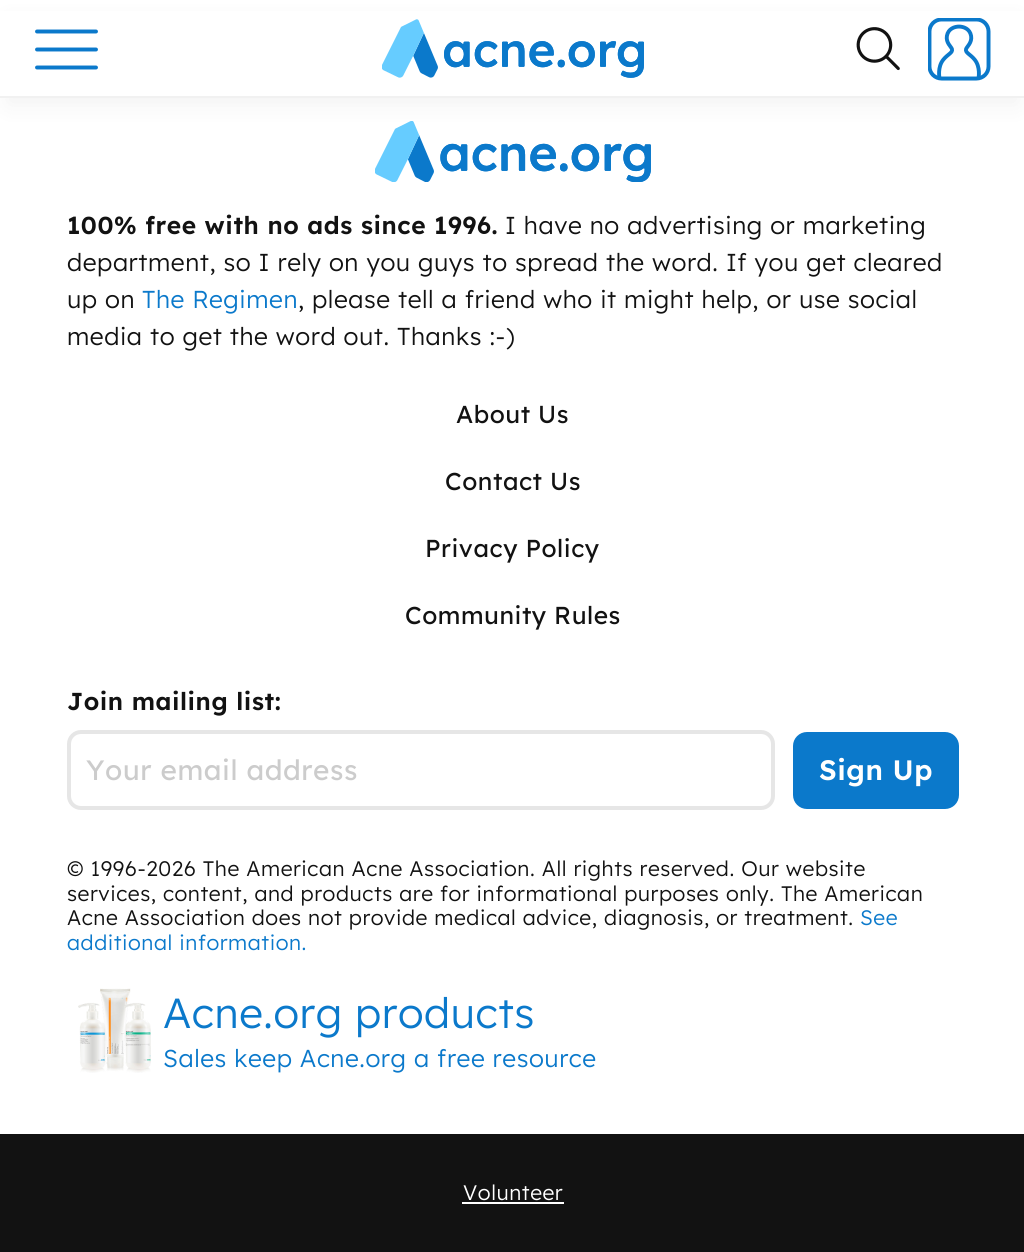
#include <cairo.h>
#include <math.h>
#include <stddef.h>


static void spaced_text(cairo_t *cr, double x, double y, const char *s, double letter, double word) {
    cairo_move_to(cr, x, y);
    while (*s) {
        char ch[5] = {0};
        int n = 0;
        do ch[n++] = *s++; while ((*s & 0xC0) == 0x80);
        cairo_show_text(cr, ch);
        cairo_rel_move_to(cr, letter + word * (*ch == ' '), 0);
    }
}

static void round_rect(cairo_t *cr, double x, double y, double w, double h, double r) {
    cairo_new_sub_path(cr);
    cairo_arc(cr, x + w - r, y + h - r, r, 0, M_PI / 2);
    cairo_arc(cr, x + r, y + h - r, r, M_PI / 2, M_PI);
    cairo_arc(cr, x + r, y + r, r, M_PI, 1.5 * M_PI);
    cairo_arc(cr, x + w - r, y + r, r, 1.5 * M_PI, 2 * M_PI);
    cairo_close_path(cr);
}

static void shadow(cairo_t *cr, double x, double y, double w, double h, double r, double blur, double alpha) {
    cairo_push_group_with_content(cr, CAIRO_CONTENT_ALPHA);
    cairo_set_operator(cr, CAIRO_OPERATOR_SOURCE);
    for (int i = 15; i >= -15 && fmin(w, h) + blur * i / 3 > 0; i -= 2) {
        double e = blur * i / 6;
        cairo_set_source_rgba(cr, 0, 0, 0, alpha * erfc((i - 1) / 8.5) / 2);
        round_rect(cr, x - e, y - e, w + 2 * e, h + 2 * e, fmax(0, fmin(r + e + blur * .6, fmin(w, h) / 2 + e)));
        cairo_fill(cr);
    }
    cairo_pattern_t *soft = cairo_pop_group(cr);
    cairo_mask(cr, soft);
    cairo_pattern_destroy(soft);
}

static void picture(cairo_t *cr, const char *path, double x, double y, double w, double h) {
    cairo_surface_t *image = cairo_image_surface_create_from_png(path);
    cairo_save(cr);
    cairo_set_source_surface(cr, image, x, y);
    cairo_rectangle(cr, x, y, w, h);
    cairo_fill(cr);
    cairo_restore(cr);
    cairo_surface_destroy(image);
}

int main(void) {
    cairo_surface_t *surface = cairo_image_surface_create(CAIRO_FORMAT_RGB24, 1024, 1252);
    cairo_t *cr = cairo_create(surface);
    cairo_font_options_t *options = cairo_font_options_create();
    cairo_font_options_set_hint_metrics(options, CAIRO_HINT_METRICS_OFF);
    cairo_font_options_set_hint_style(options, CAIRO_HINT_STYLE_NONE);
    cairo_set_font_options(cr, options);
    cairo_set_miter_limit(cr, 4);
    cairo_set_source_rgb(cr, 1, 1, 1);
    cairo_paint(cr);
    picture(cr, "img4.png", 375, 121, 276, 61);
    cairo_set_source_rgb(cr, 0, 0, 0);
    shadow(cr, 7, 21, 1012, 84, 0, 11.5, 0.05);
    cairo_set_source_rgb(cr, 1, 1, 1);
    cairo_rectangle(cr, 0, 11, 1024, 85);
    cairo_fill(cr);
    cairo_set_source_rgb(cr, 0.945, 0.945, 0.945);
    cairo_rectangle(cr, 0, 96, 1024, 2);
    cairo_fill(cr);
    cairo_new_path(cr);
    cairo_move_to(cr, 37, 31.5);
    cairo_line_to(cr, 96, 31.5);
    cairo_move_to(cr, 37, 49.5);
    cairo_line_to(cr, 96, 49.5);
    cairo_move_to(cr, 37, 67.5);
    cairo_line_to(cr, 96, 67.5);
    cairo_set_source_rgb(cr, 0.043, 0.475, 0.796);
    cairo_set_line_width(cr, 3.9);
    cairo_set_line_cap(cr, CAIRO_LINE_CAP_ROUND);
    cairo_stroke(cr);
    picture(cr, "img1.png", 382, 19, 262, 59);
    picture(cr, "img2.png", 856, 27, 44, 44);
    picture(cr, "img3.png", 928, 18, 63, 63);
    cairo_select_font_face(cr, "Lexend Deca SemiBold", CAIRO_FONT_SLANT_NORMAL, CAIRO_FONT_WEIGHT_NORMAL);
    cairo_set_font_size(cr, 24.5);
    cairo_set_source_rgb(cr, 0.071, 0.071, 0.071);
    spaced_text(cr, 67, 234, "100% free with no ads since 1996.", 0.55, 0);
    cairo_select_font_face(cr, "Lexend Deca Light", CAIRO_FONT_SLANT_NORMAL, CAIRO_FONT_WEIGHT_NORMAL);
    spaced_text(cr, 505, 234, "I have no advertising or marketing", 0.55, 0);
    spaced_text(cr, 67, 271, "department, so I rely on you guys to spread the word. If you get cleared", 0.55, 0);
    spaced_text(cr, 67, 308, "up on", 0.55, 0);
    cairo_set_source_rgb(cr, 0.043, 0.475, 0.796);
    spaced_text(cr, 142, 308, "The Regimen", 0.55, 0);
    cairo_set_source_rgb(cr, 0.071, 0.071, 0.071);
    spaced_text(cr, 298, 308, ", please tell a friend who it might help, or use social", 0.55, 0);
    spaced_text(cr, 67, 345, "media to get the word out. Thanks :-)", 0.55, 0);
    cairo_select_font_face(cr, "Lexend Deca", CAIRO_FONT_SLANT_NORMAL, CAIRO_FONT_WEIGHT_NORMAL);
    spaced_text(cr, 456, 423, "About Us", 0.55, 0);
    spaced_text(cr, 445, 490, "Contact Us", 0.55, 0);
    spaced_text(cr, 425, 557, "Privacy Policy", 0.55, 0);
    spaced_text(cr, 405, 624, "Community Rules", 0.55, 0);
    cairo_select_font_face(cr, "Lexend Deca SemiBold", CAIRO_FONT_SLANT_NORMAL, CAIRO_FONT_WEIGHT_NORMAL);
    spaced_text(cr, 67, 710, "Join mailing list:", 0.55, 0);
    round_rect(cr, 69, 732, 704, 76, 12);
    cairo_set_source_rgb(cr, 0.902, 0.902, 0.902);
    cairo_set_line_width(cr, 4);
    cairo_set_line_cap(cr, CAIRO_LINE_CAP_BUTT);
    cairo_stroke(cr);
    cairo_select_font_face(cr, "Lexend Deca", CAIRO_FONT_SLANT_NORMAL, CAIRO_FONT_WEIGHT_NORMAL);
    cairo_set_font_size(cr, 28);
    cairo_set_source_rgb(cr, 0.8, 0.8, 0.8);
    spaced_text(cr, 86, 780, "Your email address", 0.55, 0);
    cairo_set_source_rgb(cr, 0.043, 0.475, 0.796);
    round_rect(cr, 793, 732, 166, 77, 14);
    cairo_fill(cr);
    cairo_select_font_face(cr, "Lexend Deca SemiBold", CAIRO_FONT_SLANT_NORMAL, CAIRO_FONT_WEIGHT_NORMAL);
    cairo_set_source_rgb(cr, 1, 1, 1);
    spaced_text(cr, 819, 780, "Sign Up", 0.55, 0);
    cairo_select_font_face(cr, "Lexend Deca Light", CAIRO_FONT_SLANT_NORMAL, CAIRO_FONT_WEIGHT_NORMAL);
    cairo_set_font_size(cr, 21);
    cairo_set_source_rgb(cr, 0.071, 0.071, 0.071);
    spaced_text(cr, 67, 876, "© 1996-2026 The American Acne Association. All rights reserved. Our website", 0.55, 0);
    spaced_text(cr, 67, 901, "services, content, and products are for informational purposes only. The American", 0.55, 0);
    spaced_text(cr, 67, 925, "Acne Association does not provide medical advice, diagnosis, or treatment.", 0.55, 0);
    cairo_set_source_rgb(cr, 0.043, 0.475, 0.796);
    spaced_text(cr, 860, 925, "See", 0.55, 0);
    spaced_text(cr, 67, 950, "additional information.", 0.55, 0);
    picture(cr, "img5.png", 78, 988, 73, 85);
    cairo_set_font_size(cr, 42);
    spaced_text(cr, 163, 1028, "Acne.org products", 0.55, 0);
    cairo_set_font_size(cr, 24.5);
    spaced_text(cr, 163, 1067, "Sales keep Acne.org a free resource", 0.55, 0);
    cairo_set_source_rgb(cr, 0.071, 0.071, 0.071);
    cairo_rectangle(cr, 0, 1134, 1024, 118);
    cairo_fill(cr);
    cairo_set_font_size(cr, 21);
    cairo_set_source_rgb(cr, 1, 1, 1);
    spaced_text(cr, 463, 1200, "Volunteer", 0.55, 0);
    cairo_rectangle(cr, 462, 1202, 102, 2);
    cairo_fill(cr);
    cairo_surface_write_to_png(surface, "page.png");
    cairo_font_options_destroy(options);
    cairo_destroy(cr);
    cairo_surface_destroy(surface);
    return 0;
}
